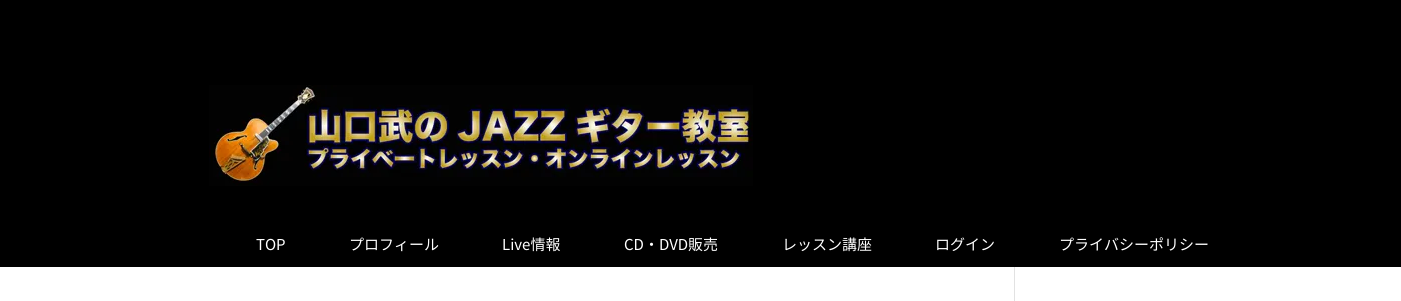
#include <cairo.h>
#include <math.h>
#include <stddef.h>


static void picture(cairo_t *cr, const char *path, double x, double y, double w, double h) {
    cairo_surface_t *image = cairo_image_surface_create_from_png(path);
    cairo_save(cr);
    cairo_set_source_surface(cr, image, x, y);
    cairo_rectangle(cr, x, y, w, h);
    cairo_fill(cr);
    cairo_restore(cr);
    cairo_surface_destroy(image);
}

int main(void) {
    cairo_surface_t *surface = cairo_image_surface_create(CAIRO_FORMAT_RGB24, 1401, 301);
    cairo_t *cr = cairo_create(surface);
    cairo_font_options_t *options = cairo_font_options_create();
    cairo_font_options_set_hint_metrics(options, CAIRO_HINT_METRICS_OFF);
    cairo_font_options_set_hint_style(options, CAIRO_HINT_STYLE_NONE);
    cairo_set_font_options(cr, options);
    cairo_set_miter_limit(cr, 4);
    cairo_set_source_rgb(cr, 1, 1, 1);
    cairo_paint(cr);
    cairo_set_source_rgb(cr, 0, 0, 0);
    cairo_rectangle(cr, 0, 0, 1401, 267);
    cairo_fill(cr);
    picture(cr, "img1.png", 209, 85, 544, 101);
    cairo_select_font_face(cr, "Noto Sans JP", CAIRO_FONT_SLANT_NORMAL, CAIRO_FONT_WEIGHT_NORMAL);
    cairo_set_font_size(cr, 15);
    cairo_set_source_rgb(cr, 1, 1, 1);
    cairo_move_to(cr, 256, 250);
    cairo_show_text(cr, "TOP");
    cairo_move_to(cr, 349, 250);
    cairo_show_text(cr, "プロフィール");
    cairo_move_to(cr, 502, 250);
    cairo_show_text(cr, "Live情報");
    cairo_move_to(cr, 624, 250);
    cairo_show_text(cr, "CD・DVD販売");
    cairo_move_to(cr, 782, 250);
    cairo_show_text(cr, "レッスン講座");
    cairo_move_to(cr, 935, 250);
    cairo_show_text(cr, "ログイン");
    cairo_move_to(cr, 1059, 250);
    cairo_show_text(cr, "プライバシーポリシー");
    cairo_set_source_rgb(cr, 0.886, 0.886, 0.886);
    cairo_rectangle(cr, 1014, 267, 1, 34);
    cairo_fill(cr);
    cairo_surface_write_to_png(surface, "page.png");
    cairo_font_options_destroy(options);
    cairo_destroy(cr);
    cairo_surface_destroy(surface);
    return 0;
}
